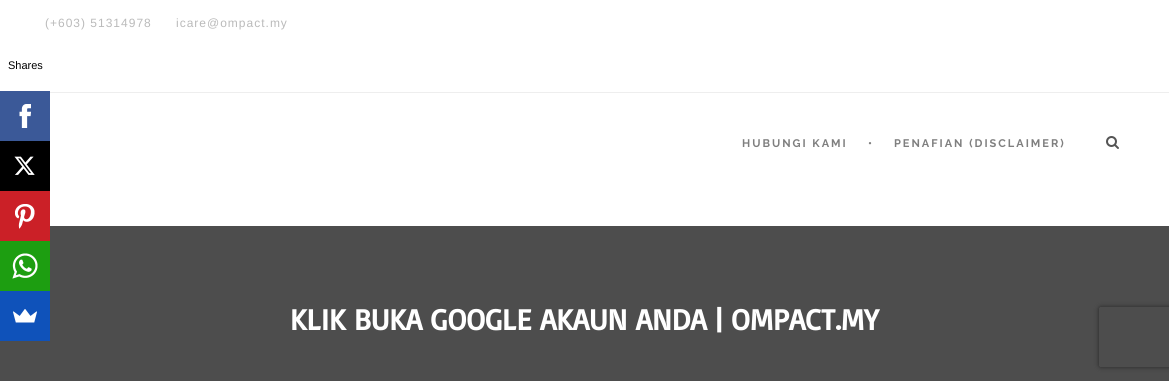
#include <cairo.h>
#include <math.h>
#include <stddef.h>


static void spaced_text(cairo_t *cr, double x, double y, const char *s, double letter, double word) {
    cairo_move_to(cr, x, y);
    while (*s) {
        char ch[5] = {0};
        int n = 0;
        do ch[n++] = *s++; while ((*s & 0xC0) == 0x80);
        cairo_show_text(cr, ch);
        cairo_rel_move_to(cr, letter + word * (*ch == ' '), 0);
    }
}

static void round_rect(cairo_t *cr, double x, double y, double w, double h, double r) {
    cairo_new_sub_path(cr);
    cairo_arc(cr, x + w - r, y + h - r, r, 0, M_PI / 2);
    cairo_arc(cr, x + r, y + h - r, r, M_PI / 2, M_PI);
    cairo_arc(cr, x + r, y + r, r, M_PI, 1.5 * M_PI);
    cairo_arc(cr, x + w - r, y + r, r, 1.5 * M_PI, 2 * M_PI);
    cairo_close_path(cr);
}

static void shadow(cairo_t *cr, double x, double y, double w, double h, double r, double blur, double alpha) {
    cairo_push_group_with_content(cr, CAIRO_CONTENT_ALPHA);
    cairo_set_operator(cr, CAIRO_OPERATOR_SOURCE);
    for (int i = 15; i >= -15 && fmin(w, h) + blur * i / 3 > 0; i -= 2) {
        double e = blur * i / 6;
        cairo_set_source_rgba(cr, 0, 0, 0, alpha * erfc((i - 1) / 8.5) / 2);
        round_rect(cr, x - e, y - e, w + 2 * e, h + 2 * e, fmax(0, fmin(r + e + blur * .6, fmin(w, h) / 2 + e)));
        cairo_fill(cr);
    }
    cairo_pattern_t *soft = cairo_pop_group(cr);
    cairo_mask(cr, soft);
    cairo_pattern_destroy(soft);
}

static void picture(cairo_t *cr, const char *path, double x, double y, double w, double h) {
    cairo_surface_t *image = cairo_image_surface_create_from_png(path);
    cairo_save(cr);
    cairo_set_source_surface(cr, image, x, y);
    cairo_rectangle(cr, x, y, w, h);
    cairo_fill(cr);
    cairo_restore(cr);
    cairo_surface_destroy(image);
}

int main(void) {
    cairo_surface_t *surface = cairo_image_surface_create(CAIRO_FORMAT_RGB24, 1169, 381);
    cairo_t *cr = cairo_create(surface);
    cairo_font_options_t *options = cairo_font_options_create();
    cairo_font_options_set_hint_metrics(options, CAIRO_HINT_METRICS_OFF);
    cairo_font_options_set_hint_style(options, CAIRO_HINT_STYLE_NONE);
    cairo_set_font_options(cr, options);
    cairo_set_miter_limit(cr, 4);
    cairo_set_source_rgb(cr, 1, 1, 1);
    cairo_paint(cr);
    cairo_select_font_face(cr, "Liberation Sans", CAIRO_FONT_SLANT_NORMAL, CAIRO_FONT_WEIGHT_NORMAL);
    cairo_set_font_size(cr, 11);
    cairo_set_source_rgb(cr, 0, 0, 0);
    cairo_move_to(cr, 8, 69);
    cairo_show_text(cr, "Shares");
    cairo_set_source_rgb(cr, 0.231, 0.349, 0.596);
    cairo_rectangle(cr, 0, 91, 50, 50);
    cairo_fill(cr);
    picture(cr, "img1.png", 19, 104, 12, 24);
    cairo_set_source_rgb(cr, 0, 0, 0);
    cairo_rectangle(cr, 0, 141, 50, 50);
    cairo_fill(cr);
    picture(cr, "img2.png", 14, 156, 21, 19);
    cairo_set_source_rgb(cr, 0.302, 0.302, 0.302);
    cairo_rectangle(cr, 0, 226, 1169, 155);
    cairo_fill(cr);
    cairo_set_source_rgb(cr, 0.796, 0.125, 0.153);
    cairo_rectangle(cr, 0, 191, 50, 50);
    cairo_fill(cr);
    picture(cr, "img3.png", 15, 204, 20, 25);
    cairo_set_source_rgb(cr, 0.114, 0.62, 0.067);
    cairo_rectangle(cr, 0, 241, 50, 50);
    cairo_fill(cr);
    picture(cr, "img4.png", 12, 253, 26, 26);
    cairo_set_source_rgb(cr, 0.059, 0.322, 0.729);
    cairo_rectangle(cr, 0, 291, 50, 50);
    cairo_fill(cr);
    picture(cr, "img5.png", 13, 309, 24, 14);
    cairo_set_source_rgb(cr, 0.933, 0.933, 0.933);
    cairo_rectangle(cr, 50, 92, 1119, 1);
    cairo_fill(cr);
    cairo_set_font_size(cr, 12);
    cairo_set_source_rgb(cr, 0.729, 0.729, 0.729);
    spaced_text(cr, 45, 27, "(+603) 51314978", 1, 0);
    spaced_text(cr, 176, 27, "icare@ompact.my", 1, 0);
    cairo_select_font_face(cr, "Raleway", CAIRO_FONT_SLANT_NORMAL, CAIRO_FONT_WEIGHT_BOLD);
    cairo_set_font_size(cr, 11);
    cairo_set_source_rgb(cr, 0.498, 0.498, 0.498);
    spaced_text(cr, 742, 147, "HUBUNGI KAMI", 2, 0);
    spaced_text(cr, 868, 147, "•", 2, 0);
    spaced_text(cr, 894, 147, "PENAFIAN (DISCLAIMER)", 2, 0);
    picture(cr, "img6.png", 1106, 136, 13, 13);
    cairo_select_font_face(cr, "Basic", CAIRO_FONT_SLANT_NORMAL, CAIRO_FONT_WEIGHT_BOLD);
    cairo_set_font_size(cr, 30);
    cairo_set_source_rgb(cr, 1, 1, 1);
    cairo_move_to(cr, 290, 330);
    cairo_show_text(cr, "KLIK BUKA GOOGLE AKAUN ANDA | OMPACT.MY");
    cairo_save(cr);
    cairo_set_fill_rule(cr, CAIRO_FILL_RULE_EVEN_ODD);
    cairo_new_path(cr);
    cairo_move_to(cr, 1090, 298);
    cairo_line_to(cr, 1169, 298);
    cairo_line_to(cr, 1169, 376);
    cairo_line_to(cr, 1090, 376);
    cairo_close_path(cr);
    cairo_move_to(cr, 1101, 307);
    cairo_line_to(cr, 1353, 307);
    cairo_curve_to(cr, 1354, 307, 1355, 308, 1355, 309);
    cairo_line_to(cr, 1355, 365);
    cairo_curve_to(cr, 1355, 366, 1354, 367, 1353, 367);
    cairo_line_to(cr, 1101, 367);
    cairo_curve_to(cr, 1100, 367, 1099, 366, 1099, 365);
    cairo_line_to(cr, 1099, 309);
    cairo_curve_to(cr, 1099, 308, 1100, 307, 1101, 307);
    cairo_close_path(cr);
    cairo_clip(cr);
    cairo_set_source_rgb(cr, 0.149, 0.149, 0.149);
    shadow(cr, 1099, 307, 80, 60, 2, 2.5, 1);
    cairo_restore(cr);
    cairo_surface_write_to_png(surface, "page.png");
    cairo_font_options_destroy(options);
    cairo_destroy(cr);
    cairo_surface_destroy(surface);
    return 0;
}
